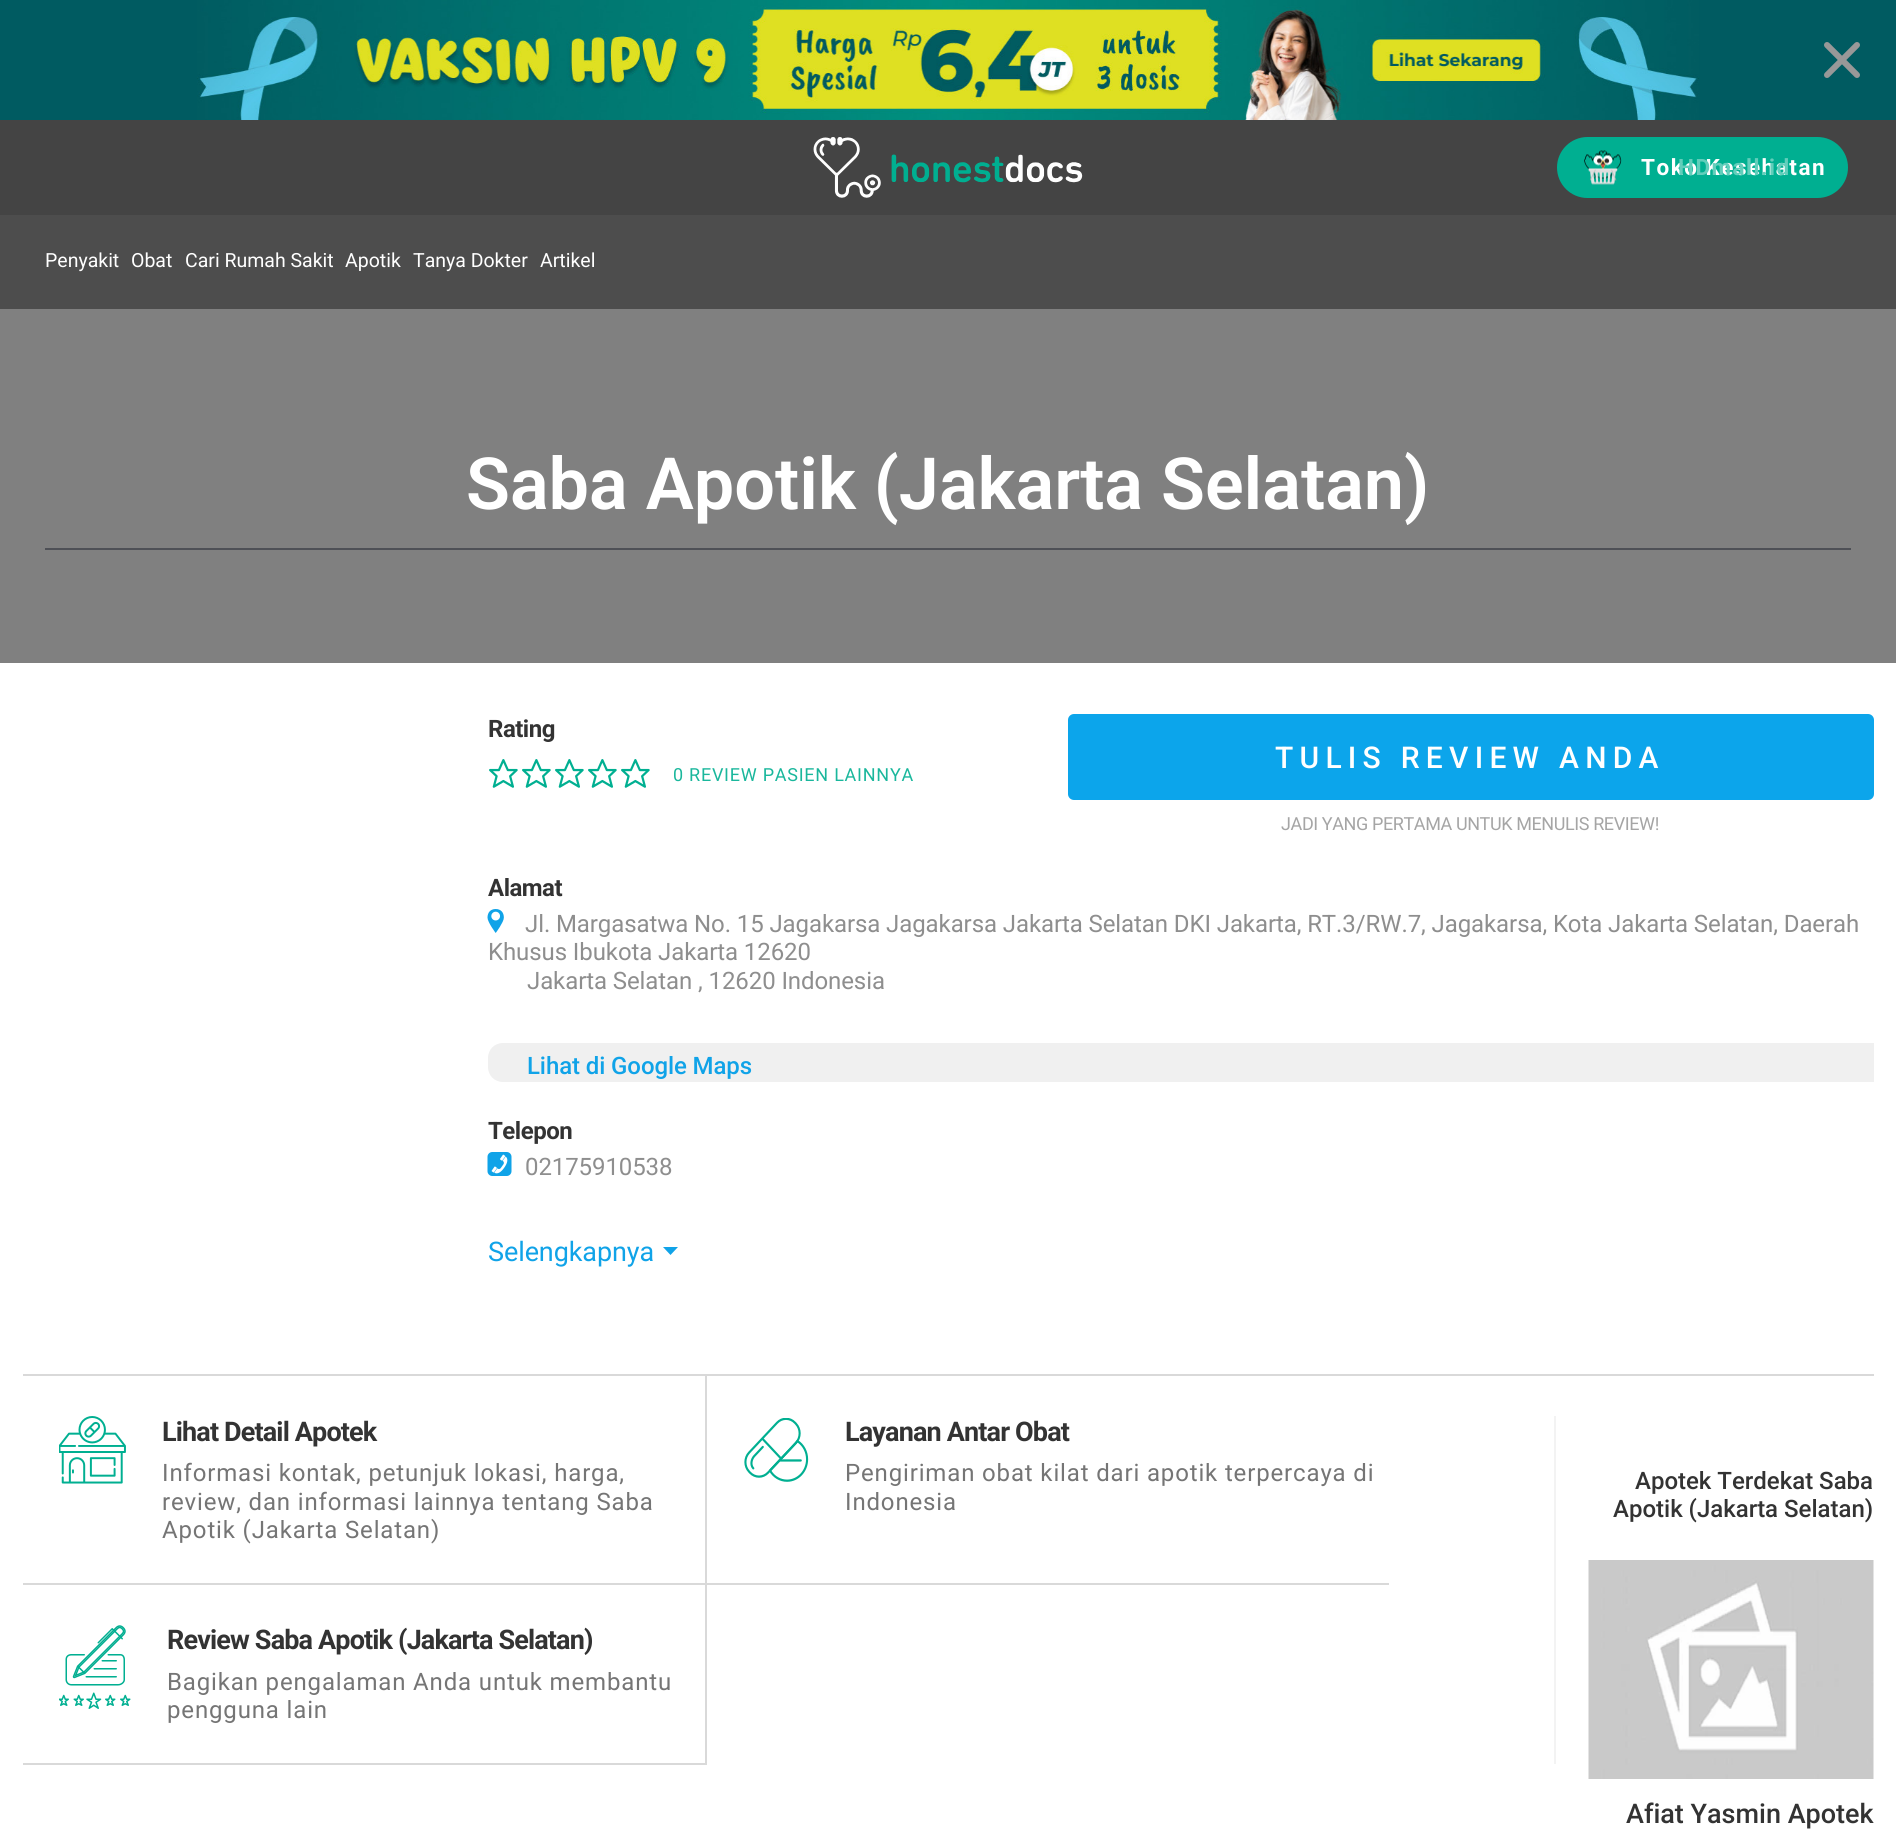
#include <cairo.h>
#include <math.h>
#include <stddef.h>


static void spaced_text(cairo_t *cr, double x, double y, const char *s, double letter, double word) {
    cairo_move_to(cr, x, y);
    while (*s) {
        char ch[5] = {0};
        int n = 0;
        do ch[n++] = *s++; while ((*s & 0xC0) == 0x80);
        cairo_show_text(cr, ch);
        cairo_rel_move_to(cr, letter + word * (*ch == ' '), 0);
    }
}

static void round_rect(cairo_t *cr, double x, double y, double w, double h, double r) {
    cairo_new_sub_path(cr);
    cairo_arc(cr, x + w - r, y + h - r, r, 0, M_PI / 2);
    cairo_arc(cr, x + r, y + h - r, r, M_PI / 2, M_PI);
    cairo_arc(cr, x + r, y + r, r, M_PI, 1.5 * M_PI);
    cairo_arc(cr, x + w - r, y + r, r, 1.5 * M_PI, 2 * M_PI);
    cairo_close_path(cr);
}

static void picture(cairo_t *cr, const char *path, double x, double y, double w, double h) {
    cairo_surface_t *image = cairo_image_surface_create_from_png(path);
    cairo_save(cr);
    cairo_set_source_surface(cr, image, x, y);
    cairo_rectangle(cr, x, y, w, h);
    cairo_fill(cr);
    cairo_restore(cr);
    cairo_surface_destroy(image);
}

int main(void) {
    cairo_surface_t *surface = cairo_image_surface_create(CAIRO_FORMAT_RGB24, 1896, 1829);
    cairo_t *cr = cairo_create(surface);
    cairo_font_options_t *options = cairo_font_options_create();
    cairo_font_options_set_hint_metrics(options, CAIRO_HINT_METRICS_OFF);
    cairo_font_options_set_hint_style(options, CAIRO_HINT_STYLE_NONE);
    cairo_set_font_options(cr, options);
    cairo_set_miter_limit(cr, 4);
    cairo_set_source_rgb(cr, 1, 1, 1);
    cairo_paint(cr);
    cairo_set_source_rgb(cr, 0, 0.357, 0.38);
    cairo_rectangle(cr, 0, 0, 1896, 120);
    cairo_fill(cr);
    picture(cr, "img1.png", 197, 0, 1502, 120);
    picture(cr, "img2.png", 1824, 42, 36, 36);
    cairo_set_source_rgb(cr, 0.267, 0.267, 0.267);
    cairo_rectangle(cr, 0, 120, 1896, 95);
    cairo_fill(cr);
    picture(cr, "img3.png", 813, 137, 270, 61);
    cairo_set_source_rgb(cr, 0, 0.686, 0.569);
    round_rect(cr, 1557, 137, 291, 61, 30.5);
    cairo_fill(cr);
    picture(cr, "img4.png", 1584, 150, 38, 35);
    cairo_select_font_face(cr, "Roboto", CAIRO_FONT_SLANT_NORMAL, CAIRO_FONT_WEIGHT_BOLD);
    cairo_set_font_size(cr, 22.5);
    cairo_set_source_rgb(cr, 1, 1, 1);
    spaced_text(cr, 1641, 175, "Toko Kesehatan", 1.5, 0);
    cairo_set_source_rgb(cr, 0.384, 0.808, 0.733);
    spaced_text(cr, 1678, 175, "HDmall.id", 1.5, 0);
    cairo_set_source_rgb(cr, 0.302, 0.302, 0.302);
    cairo_rectangle(cr, 0, 215, 1896, 94);
    cairo_fill(cr);
    cairo_select_font_face(cr, "Roboto", CAIRO_FONT_SLANT_NORMAL, CAIRO_FONT_WEIGHT_NORMAL);
    cairo_set_font_size(cr, 19.5);
    cairo_set_source_rgb(cr, 1, 1, 1);
    cairo_move_to(cr, 45, 267);
    cairo_show_text(cr, "Penyakit");
    cairo_move_to(cr, 131, 267);
    cairo_show_text(cr, "Obat");
    cairo_move_to(cr, 185, 267);
    cairo_show_text(cr, "Cari Rumah Sakit");
    cairo_move_to(cr, 345, 267);
    cairo_show_text(cr, "Apotik");
    cairo_move_to(cr, 413, 267);
    cairo_show_text(cr, "Tanya Dokter");
    cairo_move_to(cr, 540, 267);
    cairo_show_text(cr, "Artikel");
    cairo_set_source_rgb(cr, 0.502, 0.502, 0.502);
    cairo_rectangle(cr, 0, 309, 1896, 354);
    cairo_fill(cr);
    cairo_set_source_rgb(cr, 0.306, 0.314, 0.337);
    cairo_rectangle(cr, 45, 548, 1806, 2);
    cairo_fill(cr);
    cairo_select_font_face(cr, "Roboto SemiBold", CAIRO_FONT_SLANT_NORMAL, CAIRO_FONT_WEIGHT_NORMAL);
    cairo_set_font_size(cr, 72);
    cairo_set_source_rgb(cr, 1, 1, 1);
    cairo_move_to(cr, 466, 509);
    cairo_show_text(cr, "Saba Apotik (Jakarta Selatan)");
    cairo_select_font_face(cr, "Roboto", CAIRO_FONT_SLANT_NORMAL, CAIRO_FONT_WEIGHT_BOLD);
    cairo_set_font_size(cr, 24);
    cairo_set_source_rgb(cr, 0.2, 0.2, 0.2);
    spaced_text(cr, 488, 737, "Rating", -0.5, 0);
    picture(cr, "img5.png", 489, 759, 29, 29);
    picture(cr, "img5.png", 522, 759, 29, 29);
    picture(cr, "img5.png", 555, 759, 29, 29);
    picture(cr, "img5.png", 588, 759, 29, 29);
    picture(cr, "img5.png", 621, 759, 29, 29);
    cairo_select_font_face(cr, "Roboto", CAIRO_FONT_SLANT_NORMAL, CAIRO_FONT_WEIGHT_NORMAL);
    cairo_set_font_size(cr, 18);
    cairo_set_source_rgb(cr, 0.102, 0.718, 0.612);
    spaced_text(cr, 673, 781, "0 REVIEW PASIEN LAINNYA", 0.75, 0);
    cairo_set_source_rgb(cr, 0.047, 0.647, 0.918);
    round_rect(cr, 1068, 714, 806, 86, 6);
    cairo_fill(cr);
    cairo_select_font_face(cr, "Roboto Medium", CAIRO_FONT_SLANT_NORMAL, CAIRO_FONT_WEIGHT_NORMAL);
    cairo_set_font_size(cr, 30);
    cairo_set_source_rgb(cr, 1, 1, 1);
    spaced_text(cr, 1275, 768, "TULIS REVIEW ANDA", 6.25, 0);
    cairo_select_font_face(cr, "Roboto", CAIRO_FONT_SLANT_NORMAL, CAIRO_FONT_WEIGHT_NORMAL);
    cairo_set_font_size(cr, 18);
    cairo_set_source_rgb(cr, 0.647, 0.647, 0.647);
    spaced_text(cr, 1281, 830, "JADI YANG PERTAMA UNTUK MENULIS REVIEW!", -0.4, 0);
    cairo_select_font_face(cr, "Roboto", CAIRO_FONT_SLANT_NORMAL, CAIRO_FONT_WEIGHT_BOLD);
    cairo_set_font_size(cr, 24);
    cairo_set_source_rgb(cr, 0.2, 0.2, 0.2);
    spaced_text(cr, 488, 896, "Alamat", -0.5, 0);
    picture(cr, "img6.png", 487, 909, 17, 24);
    cairo_select_font_face(cr, "Roboto", CAIRO_FONT_SLANT_NORMAL, CAIRO_FONT_WEIGHT_NORMAL);
    cairo_set_source_rgb(cr, 0.557, 0.557, 0.557);
    spaced_text(cr, 525, 932, "Jl. Margasatwa No. 15 Jagakarsa Jagakarsa Jakarta Selatan DKI Jakarta, RT.3/RW.7, Jagakarsa, Kota Jakarta Selatan, Daerah", -0.09, 0);
    spaced_text(cr, 488, 960, "Khusus Ibukota Jakarta 12620", -0.09, 0);
    spaced_text(cr, 527, 989, "Jakarta Selatan , 12620 Indonesia", -0.09, 0);
    cairo_set_source_rgb(cr, 0.941, 0.941, 0.941);
    cairo_new_path(cr);
    cairo_move_to(cr, 503, 1043);
    cairo_line_to(cr, 1874, 1043);
    cairo_line_to(cr, 1874, 1082);
    cairo_line_to(cr, 503, 1082);
    cairo_curve_to(cr, 494.5, 1082, 488, 1075.5, 488, 1067);
    cairo_line_to(cr, 488, 1058);
    cairo_curve_to(cr, 488, 1049.5, 494.5, 1043, 503, 1043);
    cairo_close_path(cr);
    cairo_fill(cr);
    cairo_select_font_face(cr, "Roboto Medium", CAIRO_FONT_SLANT_NORMAL, CAIRO_FONT_WEIGHT_NORMAL);
    cairo_set_source_rgb(cr, 0.063, 0.639, 0.91);
    spaced_text(cr, 527, 1074, "Lihat di Google Maps", -0.09, 0);
    cairo_select_font_face(cr, "Roboto", CAIRO_FONT_SLANT_NORMAL, CAIRO_FONT_WEIGHT_BOLD);
    cairo_set_source_rgb(cr, 0.2, 0.2, 0.2);
    spaced_text(cr, 488, 1139, "Telepon", -0.5, 0);
    picture(cr, "img7.png", 487, 1152, 25, 24);
    cairo_select_font_face(cr, "Roboto", CAIRO_FONT_SLANT_NORMAL, CAIRO_FONT_WEIGHT_NORMAL);
    cairo_set_source_rgb(cr, 0.557, 0.557, 0.557);
    spaced_text(cr, 525, 1175, "02175910538", -0.09, 0);
    cairo_set_font_size(cr, 27);
    cairo_set_source_rgb(cr, 0.063, 0.639, 0.91);
    spaced_text(cr, 488, 1261, "Selengkapnya", -0.09, 0);
    cairo_new_path(cr);
    cairo_move_to(cr, 663, 1247);
    cairo_line_to(cr, 678, 1247);
    cairo_line_to(cr, 670.5, 1255);
    cairo_close_path(cr);
    cairo_fill(cr);
    cairo_set_source_rgb(cr, 0.851, 0.851, 0.851);
    cairo_rectangle(cr, 23, 1374, 1851, 2);
    cairo_fill(cr);
    cairo_rectangle(cr, 705, 1376, 2, 208);
    cairo_fill(cr);
    cairo_rectangle(cr, 23, 1583, 1366, 2);
    cairo_fill(cr);
    picture(cr, "img8.png", 59, 1416, 67, 68);
    cairo_select_font_face(cr, "Roboto", CAIRO_FONT_SLANT_NORMAL, CAIRO_FONT_WEIGHT_BOLD);
    cairo_set_source_rgb(cr, 0.2, 0.2, 0.2);
    spaced_text(cr, 162, 1441, "Lihat Detail Apotek", -0.85, 0);
    cairo_select_font_face(cr, "Roboto", CAIRO_FONT_SLANT_NORMAL, CAIRO_FONT_WEIGHT_NORMAL);
    cairo_set_font_size(cr, 24);
    cairo_set_source_rgb(cr, 0.459, 0.459, 0.459);
    spaced_text(cr, 162, 1481, "Informasi kontak, petunjuk lokasi, harga,", 0.85, 0);
    spaced_text(cr, 162, 1510, "review, dan informasi lainnya tentang Saba", 0.85, 0);
    spaced_text(cr, 162, 1538, "Apotik (Jakarta Selatan)", 0.85, 0);
    picture(cr, "img9.png", 744, 1418, 65, 64);
    cairo_select_font_face(cr, "Roboto", CAIRO_FONT_SLANT_NORMAL, CAIRO_FONT_WEIGHT_BOLD);
    cairo_set_font_size(cr, 27);
    cairo_set_source_rgb(cr, 0.2, 0.2, 0.2);
    spaced_text(cr, 845, 1441, "Layanan Antar Obat", -0.85, 0);
    cairo_select_font_face(cr, "Roboto", CAIRO_FONT_SLANT_NORMAL, CAIRO_FONT_WEIGHT_NORMAL);
    cairo_set_font_size(cr, 24);
    cairo_set_source_rgb(cr, 0.459, 0.459, 0.459);
    spaced_text(cr, 845, 1481, "Pengiriman obat kilat dari apotik terpercaya di", 0.85, 0);
    spaced_text(cr, 845, 1510, "Indonesia", 0.85, 0);
    cairo_set_source_rgb(cr, 0.953, 0.953, 0.953);
    cairo_rectangle(cr, 1554, 1416, 2, 348);
    cairo_fill(cr);
    cairo_set_source_rgb(cr, 0.851, 0.851, 0.851);
    cairo_rectangle(cr, 705, 1584, 2, 180);
    cairo_fill(cr);
    cairo_rectangle(cr, 23, 1763, 684, 2);
    cairo_fill(cr);
    picture(cr, "img10.png", 59, 1625, 72, 84);
    cairo_select_font_face(cr, "Roboto", CAIRO_FONT_SLANT_NORMAL, CAIRO_FONT_WEIGHT_BOLD);
    cairo_set_font_size(cr, 27);
    cairo_set_source_rgb(cr, 0.2, 0.2, 0.2);
    spaced_text(cr, 167, 1649, "Review Saba Apotik (Jakarta Selatan)", -0.85, 0);
    cairo_select_font_face(cr, "Roboto", CAIRO_FONT_SLANT_NORMAL, CAIRO_FONT_WEIGHT_NORMAL);
    cairo_set_font_size(cr, 24);
    cairo_set_source_rgb(cr, 0.459, 0.459, 0.459);
    spaced_text(cr, 167, 1690, "Bagikan pengalaman Anda untuk membantu", 0.85, 0);
    spaced_text(cr, 167, 1718, "pengguna lain", 0.85, 0);
    cairo_select_font_face(cr, "Roboto Medium", CAIRO_FONT_SLANT_NORMAL, CAIRO_FONT_WEIGHT_NORMAL);
    cairo_set_source_rgb(cr, 0.2, 0.2, 0.2);
    cairo_move_to(cr, 1635, 1489);
    cairo_show_text(cr, "Apotek Terdekat Saba");
    cairo_move_to(cr, 1613, 1517);
    cairo_show_text(cr, "Apotik (Jakarta Selatan)");
    picture(cr, "img11.png", 1588, 1560, 286, 219);
    cairo_set_font_size(cr, 27);
    cairo_move_to(cr, 1626, 1823);
    cairo_show_text(cr, "Afiat Yasmin Apotek");
    cairo_surface_write_to_png(surface, "page.png");
    cairo_font_options_destroy(options);
    cairo_destroy(cr);
    cairo_surface_destroy(surface);
    return 0;
}
